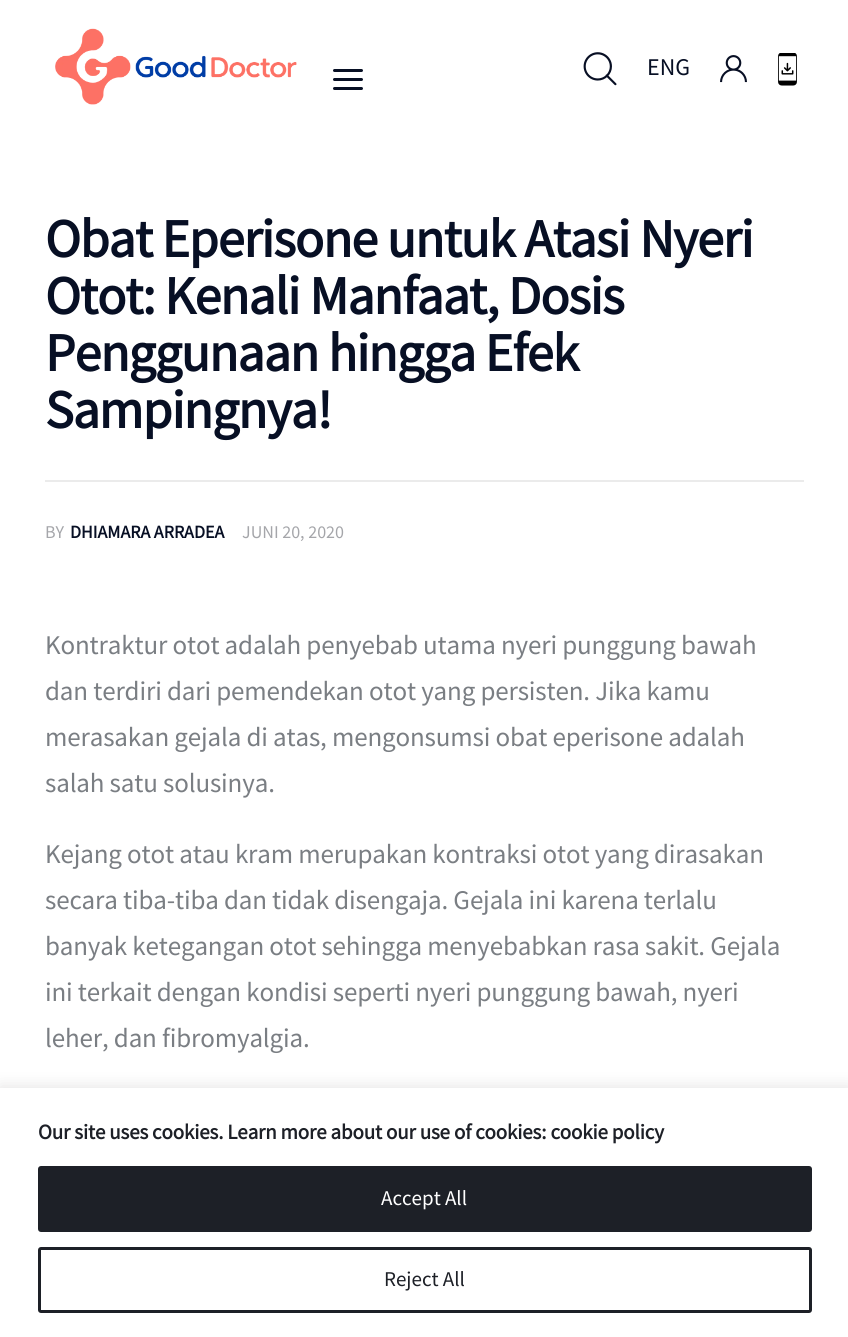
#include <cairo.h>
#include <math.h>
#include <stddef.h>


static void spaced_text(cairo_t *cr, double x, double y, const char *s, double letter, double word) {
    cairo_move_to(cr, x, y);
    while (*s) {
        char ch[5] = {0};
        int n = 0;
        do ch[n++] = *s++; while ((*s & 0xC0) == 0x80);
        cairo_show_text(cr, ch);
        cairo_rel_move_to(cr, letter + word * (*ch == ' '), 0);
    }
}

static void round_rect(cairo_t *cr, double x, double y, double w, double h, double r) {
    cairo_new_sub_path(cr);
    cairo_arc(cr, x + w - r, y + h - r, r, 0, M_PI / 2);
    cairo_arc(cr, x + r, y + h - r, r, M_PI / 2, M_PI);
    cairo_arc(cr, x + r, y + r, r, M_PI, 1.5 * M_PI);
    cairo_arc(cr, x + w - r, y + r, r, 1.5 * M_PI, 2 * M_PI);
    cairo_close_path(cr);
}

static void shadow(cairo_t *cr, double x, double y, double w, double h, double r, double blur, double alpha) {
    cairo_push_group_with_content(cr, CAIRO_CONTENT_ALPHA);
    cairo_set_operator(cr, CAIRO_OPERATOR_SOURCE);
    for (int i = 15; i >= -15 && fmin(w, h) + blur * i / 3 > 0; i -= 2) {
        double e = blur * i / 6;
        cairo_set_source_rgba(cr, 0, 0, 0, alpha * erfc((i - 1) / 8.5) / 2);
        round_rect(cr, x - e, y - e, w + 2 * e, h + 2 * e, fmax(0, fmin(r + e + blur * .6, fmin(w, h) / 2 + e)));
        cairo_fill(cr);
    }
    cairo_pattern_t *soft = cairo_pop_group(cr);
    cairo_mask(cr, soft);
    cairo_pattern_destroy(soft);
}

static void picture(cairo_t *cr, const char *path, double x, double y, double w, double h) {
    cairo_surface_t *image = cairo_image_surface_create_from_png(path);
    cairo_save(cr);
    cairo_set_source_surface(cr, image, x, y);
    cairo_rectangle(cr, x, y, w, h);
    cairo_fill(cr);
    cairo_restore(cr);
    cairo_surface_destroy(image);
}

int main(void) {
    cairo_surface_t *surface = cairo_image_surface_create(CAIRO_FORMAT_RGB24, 848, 1337);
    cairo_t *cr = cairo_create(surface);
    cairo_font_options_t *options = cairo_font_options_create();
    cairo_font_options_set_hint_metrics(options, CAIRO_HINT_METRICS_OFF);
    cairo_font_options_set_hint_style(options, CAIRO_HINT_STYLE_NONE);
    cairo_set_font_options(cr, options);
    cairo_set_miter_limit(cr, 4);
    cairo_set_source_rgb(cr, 1, 1, 1);
    cairo_paint(cr);
    picture(cr, "img1.png", 55, 28, 242, 77);
    cairo_set_source_rgb(cr, 0.031, 0.059, 0.141);
    round_rect(cr, 333, 69, 30, 3, 1.5);
    cairo_fill(cr);
    round_rect(cr, 333, 78, 30, 3, 1.5);
    cairo_fill(cr);
    round_rect(cr, 333, 87, 30, 3, 1.5);
    cairo_fill(cr);
    picture(cr, "img2.png", 583, 52, 34, 34);
    cairo_select_font_face(cr, "Source Sans Pro", CAIRO_FONT_SLANT_NORMAL, CAIRO_FONT_WEIGHT_NORMAL);
    cairo_set_font_size(cr, 24);
    cairo_move_to(cr, 647, 75);
    cairo_show_text(cr, "ENG");
    picture(cr, "img3.png", 720, 55, 27, 28);
    picture(cr, "img4.png", 778, 53, 19, 33);
    cairo_select_font_face(cr, "Source Sans Pro", CAIRO_FONT_SLANT_NORMAL, CAIRO_FONT_WEIGHT_BOLD);
    cairo_set_font_size(cr, 54);
    spaced_text(cr, 45, 257, "Obat Eperisone untuk Atasi Nyeri", -1.1, 0);
    spaced_text(cr, 45, 314, "Otot: Kenali Manfaat, Dosis", -1.1, 0);
    spaced_text(cr, 45, 371, "Penggunaan hingga Efek", -1.1, 0);
    spaced_text(cr, 45, 428, "Sampingnya!", -1.1, 0);
    cairo_set_source_rgb(cr, 0.918, 0.918, 0.918);
    cairo_rectangle(cr, 45, 480, 759, 2);
    cairo_fill(cr);
    cairo_select_font_face(cr, "Source Sans Pro", CAIRO_FONT_SLANT_NORMAL, CAIRO_FONT_WEIGHT_NORMAL);
    cairo_set_font_size(cr, 18);
    cairo_set_source_rgb(cr, 0.647, 0.651, 0.667);
    cairo_move_to(cr, 45, 538);
    cairo_show_text(cr, "BY");
    cairo_select_font_face(cr, "Source Sans Pro", CAIRO_FONT_SLANT_NORMAL, CAIRO_FONT_WEIGHT_BOLD);
    cairo_set_source_rgb(cr, 0.031, 0.059, 0.141);
    cairo_move_to(cr, 70, 538);
    cairo_show_text(cr, "DHIAMARA ARRADEA");
    cairo_select_font_face(cr, "Source Sans Pro", CAIRO_FONT_SLANT_NORMAL, CAIRO_FONT_WEIGHT_NORMAL);
    cairo_set_source_rgb(cr, 0.647, 0.651, 0.667);
    cairo_move_to(cr, 242, 538);
    cairo_show_text(cr, "JUNI 20, 2020");
    cairo_set_font_size(cr, 27);
    cairo_set_source_rgb(cr, 0.478, 0.494, 0.514);
    spaced_text(cr, 45, 654, "Kontraktur otot adalah penyebab utama nyeri punggung bawah", -0.15, 0);
    spaced_text(cr, 45, 700, "dan terdiri dari pemendekan otot yang persisten. Jika kamu", -0.15, 0);
    spaced_text(cr, 45, 746, "merasakan gejala di atas, mengonsumsi obat eperisone adalah", -0.15, 0);
    spaced_text(cr, 45, 792, "salah satu solusinya.", -0.15, 0);
    spaced_text(cr, 45, 863, "Kejang otot atau kram merupakan kontraksi otot yang dirasakan", -0.15, 0);
    spaced_text(cr, 45, 909, "secara tiba-tiba dan tidak disengaja. Gejala ini karena terlalu", -0.15, 0);
    spaced_text(cr, 45, 955, "banyak ketegangan otot sehingga menyebabkan rasa sakit. Gejala", -0.15, 0);
    spaced_text(cr, 45, 1001, "ini terkait dengan kondisi seperti nyeri punggung bawah, nyeri", -0.15, 0);
    spaced_text(cr, 45, 1047, "leher, dan fibromyalgia.", -0.15, 0);
    cairo_set_source_rgb(cr, 0.675, 0.671, 0.671);
    shadow(cr, 0, 1086, 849, 251, 0, 7.5, 0.3);
    cairo_set_source_rgb(cr, 1, 1, 1);
    cairo_rectangle(cr, 0, 1088, 848, 249);
    cairo_fill(cr);
    cairo_select_font_face(cr, "Source Sans Pro", CAIRO_FONT_SLANT_NORMAL, CAIRO_FONT_WEIGHT_BOLD);
    cairo_set_font_size(cr, 21);
    cairo_set_source_rgb(cr, 0.114, 0.125, 0.153);
    spaced_text(cr, 38, 1139, "Our site uses cookies. Learn more about our use of cookies: cookie policy", -0.15, 0);
    round_rect(cr, 39.5, 1167.5, 771, 63, 1.5);
    cairo_fill_preserve(cr);
    cairo_set_line_width(cr, 3);
    cairo_stroke(cr);
    cairo_select_font_face(cr, "Source Sans Pro", CAIRO_FONT_SLANT_NORMAL, CAIRO_FONT_WEIGHT_NORMAL);
    cairo_set_source_rgb(cr, 1, 1, 1);
    cairo_move_to(cr, 381, 1205);
    cairo_show_text(cr, "Accept All");
    round_rect(cr, 39.5, 1248.5, 771, 63, 1.5);
    cairo_set_source_rgb(cr, 0.114, 0.125, 0.153);
    cairo_stroke(cr);
    cairo_move_to(cr, 384, 1286);
    cairo_show_text(cr, "Reject All");
    cairo_surface_write_to_png(surface, "page.png");
    cairo_font_options_destroy(options);
    cairo_destroy(cr);
    cairo_surface_destroy(surface);
    return 0;
}
